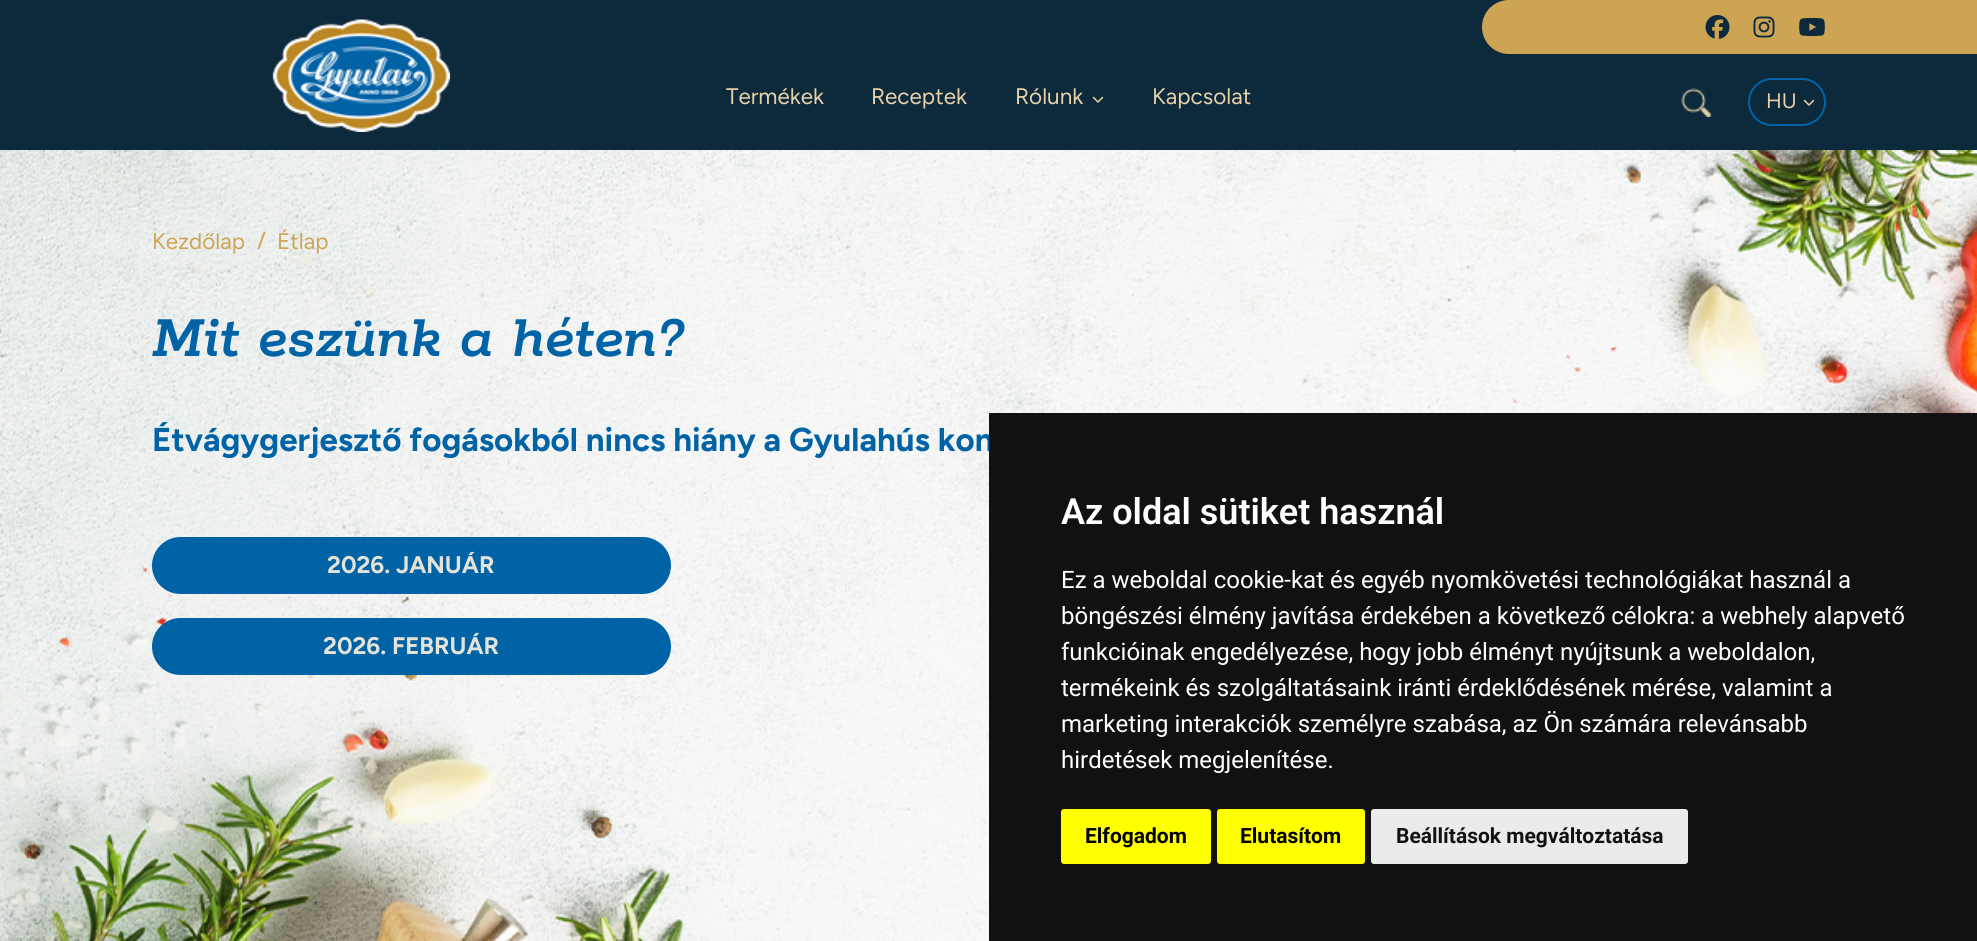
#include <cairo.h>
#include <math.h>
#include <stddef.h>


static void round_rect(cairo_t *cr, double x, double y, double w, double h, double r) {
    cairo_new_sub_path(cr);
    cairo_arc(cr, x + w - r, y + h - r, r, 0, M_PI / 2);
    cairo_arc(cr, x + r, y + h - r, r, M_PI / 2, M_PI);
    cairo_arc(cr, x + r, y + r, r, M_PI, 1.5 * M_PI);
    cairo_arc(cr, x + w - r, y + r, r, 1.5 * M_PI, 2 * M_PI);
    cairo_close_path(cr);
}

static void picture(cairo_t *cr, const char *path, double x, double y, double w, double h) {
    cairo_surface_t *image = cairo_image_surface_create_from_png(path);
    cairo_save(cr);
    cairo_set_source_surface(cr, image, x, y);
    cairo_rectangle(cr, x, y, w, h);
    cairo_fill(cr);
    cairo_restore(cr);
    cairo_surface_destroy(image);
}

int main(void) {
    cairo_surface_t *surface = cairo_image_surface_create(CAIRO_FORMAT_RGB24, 1977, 941);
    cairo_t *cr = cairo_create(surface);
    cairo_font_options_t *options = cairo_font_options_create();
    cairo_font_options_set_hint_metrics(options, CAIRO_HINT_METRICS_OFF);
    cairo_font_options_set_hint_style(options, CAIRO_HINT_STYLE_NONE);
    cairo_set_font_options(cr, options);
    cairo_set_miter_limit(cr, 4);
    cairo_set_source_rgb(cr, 1, 1, 1);
    cairo_paint(cr);
    cairo_set_source_rgb(cr, 0.051, 0.161, 0.235);
    cairo_rectangle(cr, 0, 0, 1977, 150);
    cairo_fill(cr);
    cairo_set_source_rgb(cr, 0.804, 0.643, 0.329);
    cairo_rectangle(cr, 1826, 0, 151, 54);
    cairo_fill(cr);
    picture(cr, "img1.png", 272, 19, 178, 113);
    cairo_select_font_face(cr, "Figtree", CAIRO_FONT_SLANT_NORMAL, CAIRO_FONT_WEIGHT_NORMAL);
    cairo_set_font_size(cr, 22.5);
    cairo_set_source_rgb(cr, 0.91, 0.824, 0.659);
    cairo_move_to(cr, 726, 104);
    cairo_show_text(cr, "Termékek");
    cairo_move_to(cr, 871, 104);
    cairo_show_text(cr, "Receptek");
    cairo_move_to(cr, 1015, 104);
    cairo_show_text(cr, "Rólunk");
    picture(cr, "img2.png", 1092, 96, 12, 7);
    cairo_move_to(cr, 1152, 104);
    cairo_show_text(cr, "Kapcsolat");
    cairo_set_source_rgb(cr, 0.804, 0.643, 0.329);
    cairo_new_path(cr);
    cairo_move_to(cr, 1509, 0);
    cairo_line_to(cr, 1826, 0);
    cairo_line_to(cr, 1826, 54);
    cairo_line_to(cr, 1509, 54);
    cairo_curve_to(cr, 1494, 54, 1482, 42, 1482, 27);
    cairo_curve_to(cr, 1482, 12, 1494, 0, 1509, 0);
    cairo_close_path(cr);
    cairo_fill(cr);
    picture(cr, "img3.png", 1705, 15, 25, 24);
    picture(cr, "img4.png", 1753, 16, 22, 22);
    picture(cr, "img5.png", 1799, 18, 26, 18);
    picture(cr, "img6.png", 1681, 88, 31, 29);
    round_rect(cr, 1749, 79, 76, 46, 23);
    cairo_set_source_rgb(cr, 0, 0.388, 0.651);
    cairo_stroke(cr);
    cairo_set_font_size(cr, 21);
    cairo_set_source_rgb(cr, 0.91, 0.824, 0.659);
    cairo_move_to(cr, 1766, 108);
    cairo_show_text(cr, "HU");
    picture(cr, "img2.png", 1803, 99, 12, 7);
    picture(cr, "img7.png", 0, 150, 1977, 791);
    cairo_set_font_size(cr, 22.5);
    cairo_set_source_rgb(cr, 0.804, 0.643, 0.329);
    cairo_move_to(cr, 152, 249);
    cairo_show_text(cr, "Kezdőlap");
    cairo_select_font_face(cr, "Noto Sans", CAIRO_FONT_SLANT_NORMAL, CAIRO_FONT_WEIGHT_NORMAL);
    cairo_set_font_size(cr, 24);
    cairo_move_to(cr, 257, 249);
    cairo_show_text(cr, "/");
    cairo_select_font_face(cr, "Figtree", CAIRO_FONT_SLANT_NORMAL, CAIRO_FONT_WEIGHT_NORMAL);
    cairo_set_font_size(cr, 22.5);
    cairo_move_to(cr, 277, 249);
    cairo_show_text(cr, "Étlap");
    cairo_select_font_face(cr, "Rokkitt SemiBold", CAIRO_FONT_SLANT_ITALIC, CAIRO_FONT_WEIGHT_NORMAL);
    cairo_set_font_size(cr, 63);
    cairo_set_source_rgb(cr, 0, 0.388, 0.651);
    cairo_move_to(cr, 152, 356);
    cairo_show_text(cr, "Mit eszünk a héten?");
    cairo_select_font_face(cr, "Figtree", CAIRO_FONT_SLANT_NORMAL, CAIRO_FONT_WEIGHT_BOLD);
    cairo_set_font_size(cr, 33);
    cairo_move_to(cr, 152, 451);
    cairo_show_text(cr, "Étvágygerjesztő fogásokból nincs hiány a Gyulahús kon");
    cairo_set_source_rgb(cr, 0, 0.388, 0.647);
    round_rect(cr, 152, 537, 519, 57, 28.5);
    cairo_fill(cr);
    cairo_set_font_size(cr, 24);
    cairo_set_source_rgb(cr, 0.902, 0.89, 0.859);
    cairo_move_to(cr, 327, 573);
    cairo_show_text(cr, "2026. JANUÁR");
    cairo_set_source_rgb(cr, 0, 0.388, 0.647);
    round_rect(cr, 152, 618, 519, 57, 28.5);
    cairo_fill(cr);
    cairo_set_source_rgb(cr, 0.902, 0.89, 0.859);
    cairo_move_to(cr, 323, 654);
    cairo_show_text(cr, "2026. FEBRUÁR");
    cairo_set_source_rgb(cr, 0.067, 0.067, 0.067);
    cairo_rectangle(cr, 989, 413, 988, 528);
    cairo_fill(cr);
    cairo_select_font_face(cr, "Roboto SemiBold", CAIRO_FONT_SLANT_NORMAL, CAIRO_FONT_WEIGHT_NORMAL);
    cairo_set_font_size(cr, 36);
    cairo_set_source_rgb(cr, 1, 1, 1);
    cairo_move_to(cr, 1061, 524);
    cairo_show_text(cr, "Az oldal sütiket használ");
    cairo_select_font_face(cr, "Roboto", CAIRO_FONT_SLANT_NORMAL, CAIRO_FONT_WEIGHT_NORMAL);
    cairo_set_font_size(cr, 24);
    cairo_move_to(cr, 1061, 588);
    cairo_show_text(cr, "Ez a weboldal cookie-kat és egyéb nyomkövetési technológiákat használ a");
    cairo_move_to(cr, 1061, 624);
    cairo_show_text(cr, "böngészési élmény javítása érdekében a következő célokra: a webhely alapvető");
    cairo_move_to(cr, 1061, 660);
    cairo_show_text(cr, "funkcióinak engedélyezése, hogy jobb élményt nyújtsunk a weboldalon,");
    cairo_move_to(cr, 1061, 696);
    cairo_show_text(cr, "termékeink és szolgáltatásaink iránti érdeklődésének mérése, valamint a");
    cairo_move_to(cr, 1061, 732);
    cairo_show_text(cr, "marketing interakciók személyre szabása, az Ön számára relevánsabb");
    cairo_move_to(cr, 1061, 768);
    cairo_show_text(cr, "hirdetések megjelenítése.");
    cairo_set_source_rgb(cr, 1, 1, 0);
    round_rect(cr, 1061, 809, 150, 55, 3);
    cairo_fill(cr);
    cairo_select_font_face(cr, "Roboto", CAIRO_FONT_SLANT_NORMAL, CAIRO_FONT_WEIGHT_BOLD);
    cairo_set_font_size(cr, 21);
    cairo_set_source_rgb(cr, 0, 0, 0);
    cairo_move_to(cr, 1085, 843);
    cairo_show_text(cr, "Elfogadom");
    cairo_set_source_rgb(cr, 1, 1, 0);
    round_rect(cr, 1217, 809, 148, 55, 3);
    cairo_fill(cr);
    cairo_set_source_rgb(cr, 0, 0, 0);
    cairo_move_to(cr, 1240, 843);
    cairo_show_text(cr, "Elutasítom");
    cairo_set_source_rgb(cr, 0.918, 0.918, 0.918);
    round_rect(cr, 1371, 809, 317, 55, 3);
    cairo_fill(cr);
    cairo_set_source_rgb(cr, 0.067, 0.067, 0.067);
    cairo_move_to(cr, 1396, 843);
    cairo_show_text(cr, "Beállítások megváltoztatása");
    cairo_surface_write_to_png(surface, "page.png");
    cairo_font_options_destroy(options);
    cairo_destroy(cr);
    cairo_surface_destroy(surface);
    return 0;
}
